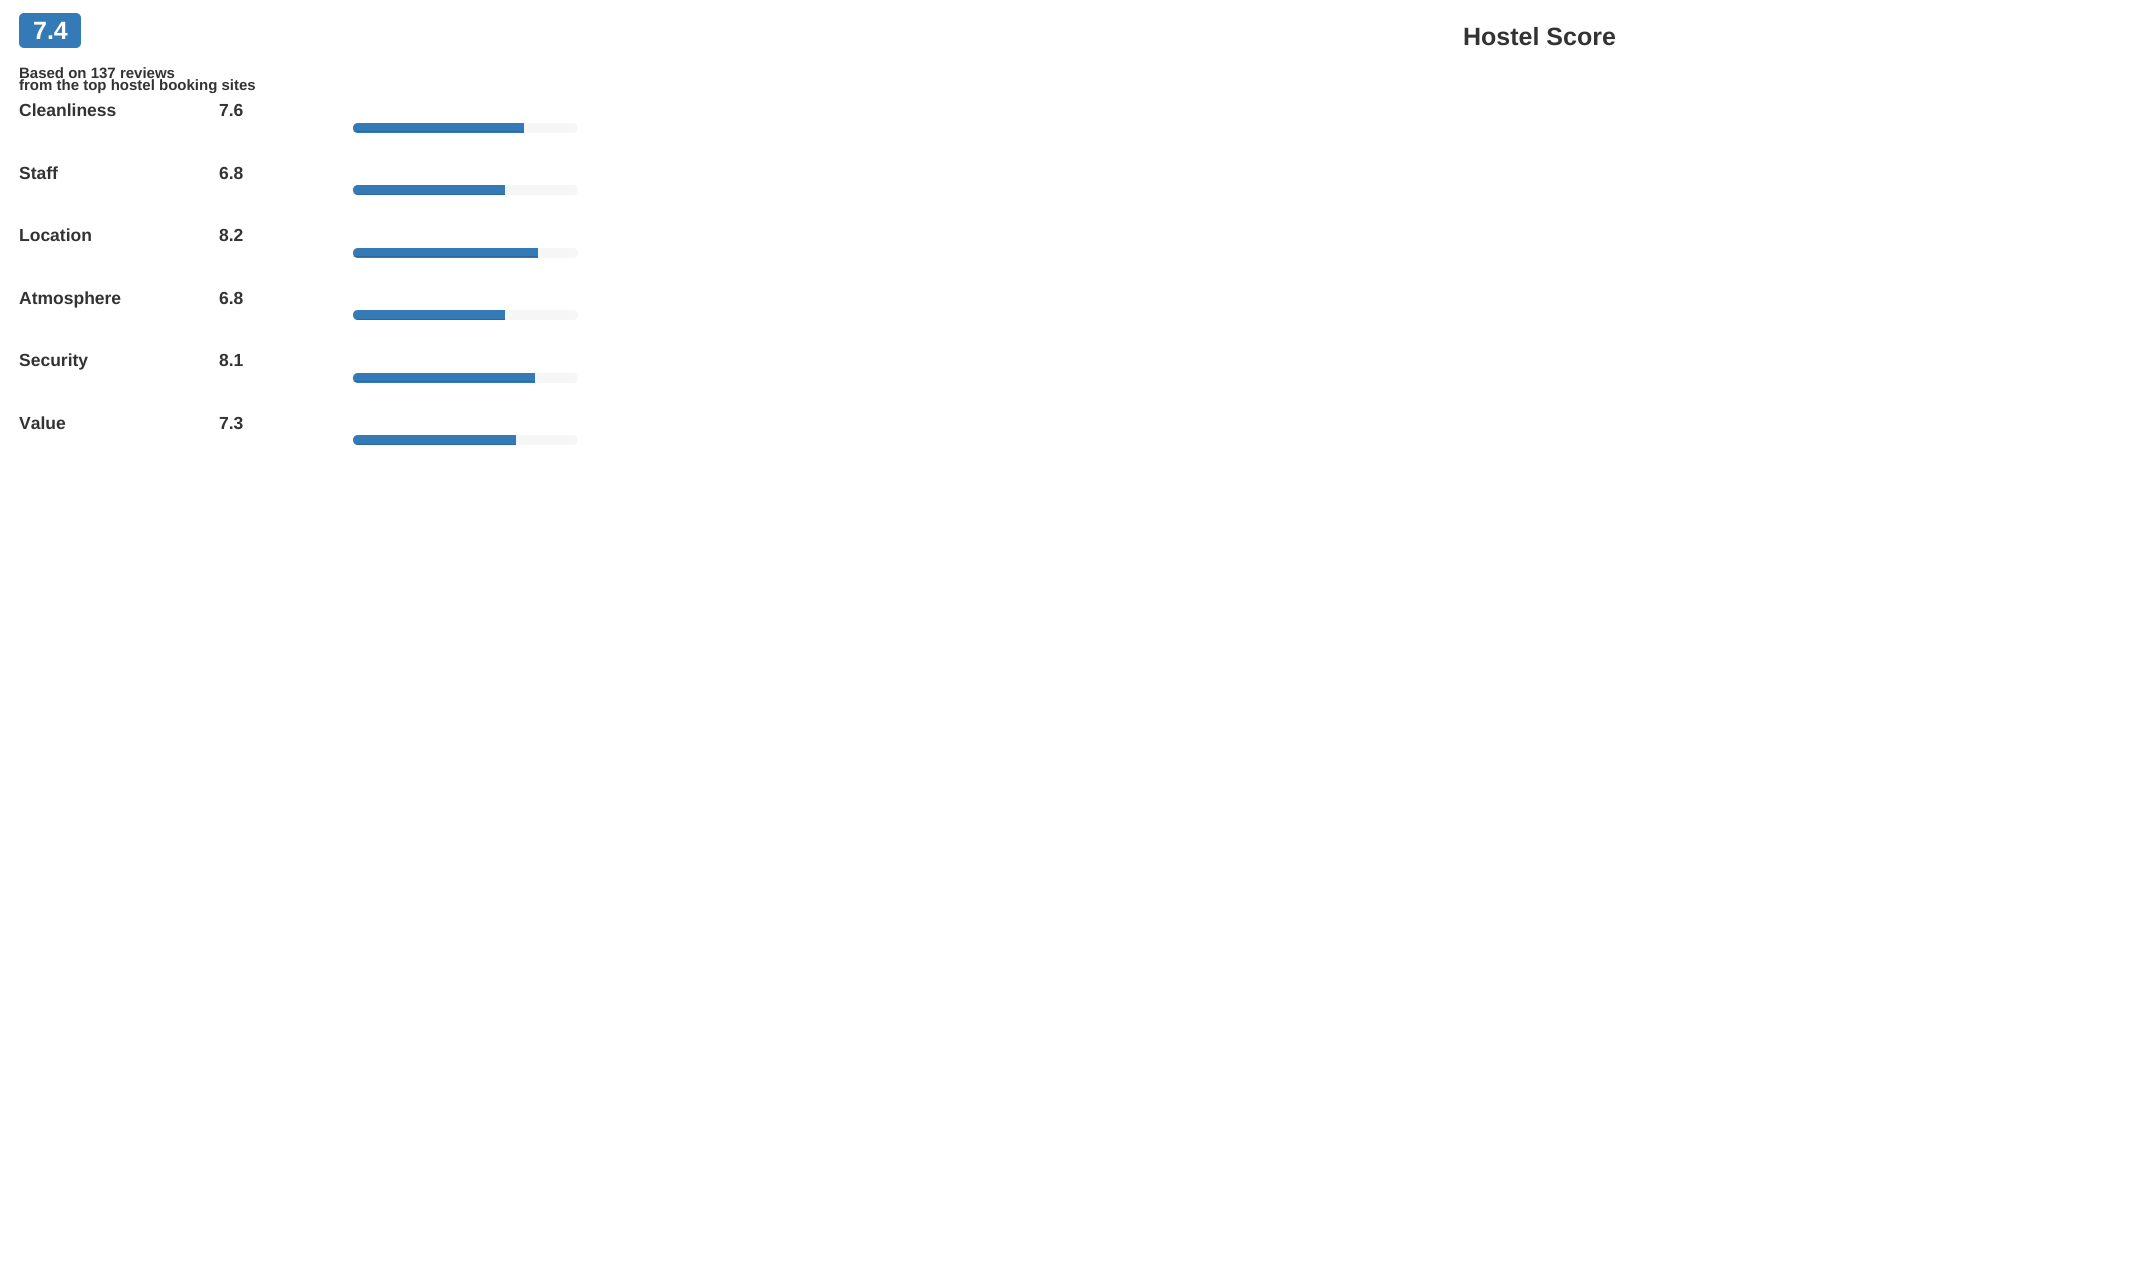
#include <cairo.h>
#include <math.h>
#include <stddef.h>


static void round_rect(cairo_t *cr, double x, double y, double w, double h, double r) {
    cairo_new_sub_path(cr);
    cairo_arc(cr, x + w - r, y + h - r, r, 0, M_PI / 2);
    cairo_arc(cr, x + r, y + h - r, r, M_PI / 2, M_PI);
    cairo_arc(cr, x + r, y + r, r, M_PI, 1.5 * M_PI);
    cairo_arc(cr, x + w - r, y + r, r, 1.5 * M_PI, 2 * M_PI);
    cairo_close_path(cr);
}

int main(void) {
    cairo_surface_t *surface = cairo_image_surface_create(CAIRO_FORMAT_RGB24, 2130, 1278);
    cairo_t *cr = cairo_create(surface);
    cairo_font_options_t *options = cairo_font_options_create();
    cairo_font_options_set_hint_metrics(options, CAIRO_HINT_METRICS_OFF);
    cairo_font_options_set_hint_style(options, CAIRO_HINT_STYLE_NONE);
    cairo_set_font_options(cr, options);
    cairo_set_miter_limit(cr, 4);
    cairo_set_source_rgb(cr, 1, 1, 1);
    cairo_paint(cr);
    cairo_set_source_rgb(cr, 0.2, 0.478, 0.718);
    round_rect(cr, 19, 13, 62, 35, 5);
    cairo_fill(cr);
    cairo_select_font_face(cr, "Liberation Sans", CAIRO_FONT_SLANT_NORMAL, CAIRO_FONT_WEIGHT_BOLD);
    cairo_set_font_size(cr, 25);
    cairo_set_source_rgb(cr, 1, 1, 1);
    cairo_move_to(cr, 33, 39);
    cairo_show_text(cr, "7.4");
    cairo_set_source_rgb(cr, 0.2, 0.2, 0.2);
    cairo_move_to(cr, 1463, 45);
    cairo_show_text(cr, "Hostel Score");
    cairo_set_font_size(cr, 15);
    cairo_move_to(cr, 19, 78);
    cairo_show_text(cr, "Based on 137 reviews");
    cairo_move_to(cr, 19, 90);
    cairo_show_text(cr, "from the top hostel booking sites");
    cairo_set_font_size(cr, 17.5);
    cairo_move_to(cr, 19, 116);
    cairo_show_text(cr, "Cleanliness");
    cairo_move_to(cr, 219, 116);
    cairo_show_text(cr, "7.6");
    cairo_set_source_rgb(cr, 0.961, 0.961, 0.961);
    round_rect(cr, 353, 123, 225, 10, 5);
    cairo_fill(cr);
    cairo_set_source_rgb(cr, 0.2, 0.478, 0.718);
    cairo_new_path(cr);
    cairo_move_to(cr, 358, 123);
    cairo_line_to(cr, 524, 123);
    cairo_line_to(cr, 524, 133);
    cairo_line_to(cr, 358, 133);
    cairo_curve_to(cr, 355, 133, 353, 131, 353, 128);
    cairo_curve_to(cr, 353, 125, 355, 123, 358, 123);
    cairo_close_path(cr);
    cairo_fill(cr);
    cairo_set_source_rgba(cr, 0, 0, 0, 0.15);
    cairo_rectangle(cr, 353, 131, 171, 1);
    cairo_fill(cr);
    cairo_set_source_rgb(cr, 0.2, 0.2, 0.2);
    cairo_move_to(cr, 19, 179);
    cairo_show_text(cr, "Staff");
    cairo_move_to(cr, 219, 179);
    cairo_show_text(cr, "6.8");
    cairo_set_source_rgb(cr, 0.961, 0.961, 0.961);
    round_rect(cr, 353, 185, 225, 10, 5);
    cairo_fill(cr);
    cairo_set_source_rgb(cr, 0.2, 0.478, 0.718);
    cairo_new_path(cr);
    cairo_move_to(cr, 358, 185);
    cairo_line_to(cr, 505, 185);
    cairo_line_to(cr, 505, 195);
    cairo_line_to(cr, 358, 195);
    cairo_curve_to(cr, 355, 195, 353, 193, 353, 190);
    cairo_curve_to(cr, 353, 187, 355, 185, 358, 185);
    cairo_close_path(cr);
    cairo_fill(cr);
    cairo_save(cr);
    round_rect(cr, 353, 185, 225, 10, 5);
    cairo_clip(cr);
    cairo_set_source_rgba(cr, 0, 0, 0, 0.15);
    cairo_rectangle(cr, 353, 194, 152, 1);
    cairo_fill(cr);
    cairo_restore(cr);
    cairo_set_source_rgb(cr, 0.2, 0.2, 0.2);
    cairo_move_to(cr, 19, 241);
    cairo_show_text(cr, "Location");
    cairo_move_to(cr, 219, 241);
    cairo_show_text(cr, "8.2");
    cairo_set_source_rgb(cr, 0.961, 0.961, 0.961);
    round_rect(cr, 353, 248, 225, 10, 5);
    cairo_fill(cr);
    cairo_set_source_rgb(cr, 0.2, 0.478, 0.718);
    cairo_new_path(cr);
    cairo_move_to(cr, 358, 248);
    cairo_line_to(cr, 538, 248);
    cairo_line_to(cr, 538, 258);
    cairo_line_to(cr, 358, 258);
    cairo_curve_to(cr, 355, 258, 353, 256, 353, 253);
    cairo_curve_to(cr, 353, 250, 355, 248, 358, 248);
    cairo_close_path(cr);
    cairo_fill(cr);
    cairo_set_source_rgba(cr, 0, 0, 0, 0.15);
    cairo_rectangle(cr, 353, 256, 185, 1);
    cairo_fill(cr);
    cairo_set_source_rgb(cr, 0.2, 0.2, 0.2);
    cairo_move_to(cr, 19, 304);
    cairo_show_text(cr, "Atmosphere");
    cairo_move_to(cr, 219, 304);
    cairo_show_text(cr, "6.8");
    cairo_set_source_rgb(cr, 0.961, 0.961, 0.961);
    round_rect(cr, 353, 310, 225, 10, 5);
    cairo_fill(cr);
    cairo_set_source_rgb(cr, 0.2, 0.478, 0.718);
    cairo_new_path(cr);
    cairo_move_to(cr, 358, 310);
    cairo_line_to(cr, 505, 310);
    cairo_line_to(cr, 505, 320);
    cairo_line_to(cr, 358, 320);
    cairo_curve_to(cr, 355, 320, 353, 318, 353, 315);
    cairo_curve_to(cr, 353, 312, 355, 310, 358, 310);
    cairo_close_path(cr);
    cairo_fill(cr);
    cairo_save(cr);
    round_rect(cr, 353, 310, 225, 10, 5);
    cairo_clip(cr);
    cairo_set_source_rgba(cr, 0, 0, 0, 0.15);
    cairo_rectangle(cr, 353, 319, 152, 1);
    cairo_fill(cr);
    cairo_restore(cr);
    cairo_set_source_rgb(cr, 0.2, 0.2, 0.2);
    cairo_move_to(cr, 19, 366);
    cairo_show_text(cr, "Security");
    cairo_move_to(cr, 219, 366);
    cairo_show_text(cr, "8.1");
    cairo_set_source_rgb(cr, 0.961, 0.961, 0.961);
    round_rect(cr, 353, 373, 225, 10, 5);
    cairo_fill(cr);
    cairo_set_source_rgb(cr, 0.2, 0.478, 0.718);
    cairo_new_path(cr);
    cairo_move_to(cr, 358, 373);
    cairo_line_to(cr, 535, 373);
    cairo_line_to(cr, 535, 383);
    cairo_line_to(cr, 358, 383);
    cairo_curve_to(cr, 355, 383, 353, 381, 353, 378);
    cairo_curve_to(cr, 353, 375, 355, 373, 358, 373);
    cairo_close_path(cr);
    cairo_fill(cr);
    cairo_set_source_rgba(cr, 0, 0, 0, 0.15);
    cairo_rectangle(cr, 353, 381, 182, 1);
    cairo_fill(cr);
    cairo_set_source_rgb(cr, 0.2, 0.2, 0.2);
    cairo_move_to(cr, 19, 429);
    cairo_show_text(cr, "Value");
    cairo_move_to(cr, 219, 429);
    cairo_show_text(cr, "7.3");
    cairo_set_source_rgb(cr, 0.961, 0.961, 0.961);
    round_rect(cr, 353, 435, 225, 10, 5);
    cairo_fill(cr);
    cairo_set_source_rgb(cr, 0.2, 0.478, 0.718);
    cairo_new_path(cr);
    cairo_move_to(cr, 358, 435);
    cairo_line_to(cr, 516, 435);
    cairo_line_to(cr, 516, 445);
    cairo_line_to(cr, 358, 445);
    cairo_curve_to(cr, 355, 445, 353, 443, 353, 440);
    cairo_curve_to(cr, 353, 437, 355, 435, 358, 435);
    cairo_close_path(cr);
    cairo_fill(cr);
    cairo_save(cr);
    round_rect(cr, 353, 435, 225, 10, 5);
    cairo_clip(cr);
    cairo_set_source_rgba(cr, 0, 0, 0, 0.15);
    cairo_rectangle(cr, 353, 444, 163, 1);
    cairo_fill(cr);
    cairo_restore(cr);
    cairo_surface_write_to_png(surface, "page.png");
    cairo_font_options_destroy(options);
    cairo_destroy(cr);
    cairo_surface_destroy(surface);
    return 0;
}
